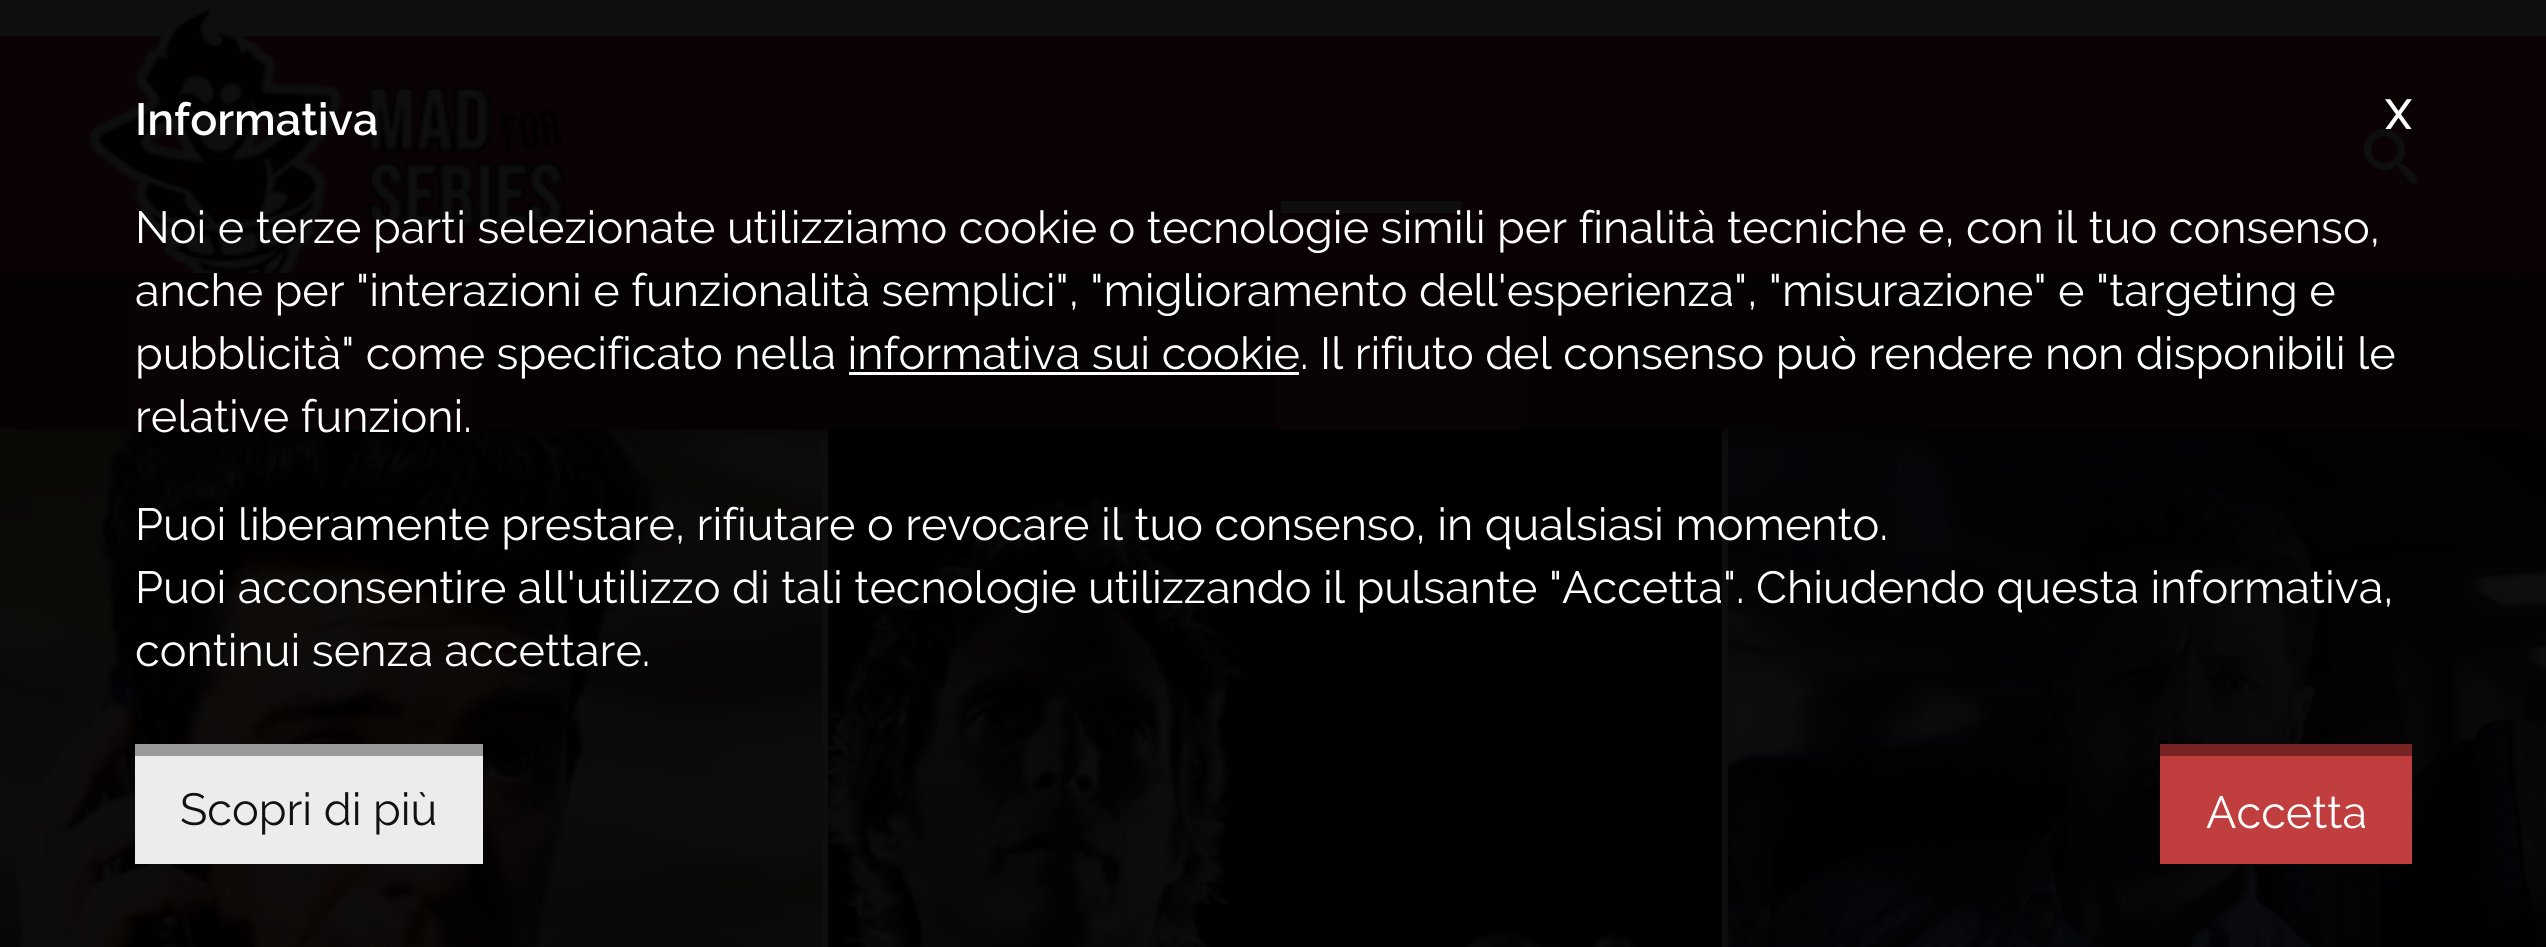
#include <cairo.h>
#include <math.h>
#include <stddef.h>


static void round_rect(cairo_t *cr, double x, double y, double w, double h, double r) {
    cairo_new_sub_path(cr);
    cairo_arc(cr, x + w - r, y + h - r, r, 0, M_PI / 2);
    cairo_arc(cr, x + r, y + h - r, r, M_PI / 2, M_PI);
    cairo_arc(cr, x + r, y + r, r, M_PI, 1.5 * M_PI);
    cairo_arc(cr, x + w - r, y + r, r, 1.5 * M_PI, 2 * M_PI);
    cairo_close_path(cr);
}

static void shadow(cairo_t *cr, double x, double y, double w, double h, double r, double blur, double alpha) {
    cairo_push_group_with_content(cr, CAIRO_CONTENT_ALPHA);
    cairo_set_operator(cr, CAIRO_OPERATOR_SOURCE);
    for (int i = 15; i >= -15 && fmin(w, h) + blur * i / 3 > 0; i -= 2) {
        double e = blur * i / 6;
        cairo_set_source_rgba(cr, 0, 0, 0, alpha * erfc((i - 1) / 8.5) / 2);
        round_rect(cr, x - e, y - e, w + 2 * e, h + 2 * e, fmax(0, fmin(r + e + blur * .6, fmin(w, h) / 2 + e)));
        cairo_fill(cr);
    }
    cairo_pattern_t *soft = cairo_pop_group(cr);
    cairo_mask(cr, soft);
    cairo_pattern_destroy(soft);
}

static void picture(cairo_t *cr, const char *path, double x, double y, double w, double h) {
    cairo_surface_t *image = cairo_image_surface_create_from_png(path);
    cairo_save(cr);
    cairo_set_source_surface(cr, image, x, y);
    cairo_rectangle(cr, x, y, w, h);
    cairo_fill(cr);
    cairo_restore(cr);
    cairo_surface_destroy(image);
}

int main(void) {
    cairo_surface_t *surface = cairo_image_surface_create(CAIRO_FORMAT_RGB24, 2546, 947);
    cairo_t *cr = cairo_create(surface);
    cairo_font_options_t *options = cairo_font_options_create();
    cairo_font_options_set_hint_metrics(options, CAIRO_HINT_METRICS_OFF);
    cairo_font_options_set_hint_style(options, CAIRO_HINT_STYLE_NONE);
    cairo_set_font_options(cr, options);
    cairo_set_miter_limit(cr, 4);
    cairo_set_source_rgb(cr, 1, 1, 1);
    cairo_paint(cr);
    picture(cr, "img2.png", 0, 429, 822, 518);
    cairo_set_source_rgb(cr, 0.055, 0.055, 0.055);
    cairo_rectangle(cr, 822, 426, 6, 521);
    cairo_fill(cr);
    picture(cr, "img3.png", 828, 429, 894, 518);
    cairo_rectangle(cr, 1722, 426, 6, 521);
    cairo_fill(cr);
    picture(cr, "img4.png", 1728, 429, 818, 518);
    cairo_set_source_rgb(cr, 0, 0, 0);
    shadow(cr, 36, 339, 2475, 84, 0, 16.5, 1);
    cairo_set_source_rgb(cr, 0.027, 0.008, 0.008);
    cairo_rectangle(cr, 0, 273, 2546, 156);
    cairo_fill(cr);
    cairo_set_source_rgb(cr, 0.039, 0.012, 0.012);
    cairo_rectangle(cr, 135, 273, 330, 156);
    cairo_fill(cr);
    cairo_rectangle(cr, 1275, 273, 246, 156);
    cairo_fill(cr);
    cairo_set_source_rgb(cr, 0, 0, 0);
    shadow(cr, 36, 66, 2475, 201, 0, 16.5, 1);
    cairo_set_source_rgb(cr, 0.043, 0.012, 0.012);
    cairo_rectangle(cr, 0, 36, 2546, 237);
    cairo_fill(cr);
    cairo_set_source_rgb(cr, 0.055, 0.055, 0.055);
    cairo_rectangle(cr, 0, 0, 2546, 36);
    cairo_fill(cr);
    picture(cr, "img1.png", 90, 8, 477, 265);
    cairo_new_path(cr);
    cairo_move_to(cr, 2416, 175);
    cairo_curve_to(cr, 2414, 173, 2403, 163, 2400, 163);
    cairo_curve_to(cr, 2416, 143, 2388, 117, 2370, 135);
    cairo_curve_to(cr, 2352, 153, 2378, 182, 2397, 165);
    cairo_curve_to(cr, 2397, 168, 2401, 171, 2403, 173);
    cairo_line_to(cr, 2411, 183);
    cairo_curve_to(cr, 2416, 186, 2420, 179, 2416, 175);
    cairo_close_path(cr);
    cairo_move_to(cr, 2384, 163);
    cairo_curve_to(cr, 2367, 163, 2367, 136, 2384, 136);
    cairo_curve_to(cr, 2402, 136, 2402, 163, 2384, 163);
    cairo_close_path(cr);
    cairo_fill(cr);
    cairo_rectangle(cr, 1281, 201, 180, 12);
    cairo_fill(cr);
    cairo_select_font_face(cr, "Raleway SemiBold", CAIRO_FONT_SLANT_NORMAL, CAIRO_FONT_WEIGHT_NORMAL);
    cairo_set_font_size(cr, 45);
    cairo_set_source_rgb(cr, 1, 1, 1);
    cairo_move_to(cr, 135, 135);
    cairo_show_text(cr, "Informativa");
    cairo_set_font_size(cr, 42);
    cairo_move_to(cr, 2385, 129);
    cairo_show_text(cr, "X");
    cairo_select_font_face(cr, "Raleway", CAIRO_FONT_SLANT_NORMAL, CAIRO_FONT_WEIGHT_NORMAL);
    cairo_set_font_size(cr, 45);
    cairo_move_to(cr, 135, 243);
    cairo_show_text(cr, "Noi e terze parti selezionate utilizziamo cookie o tecnologie simili per finalità tecniche e, con il tuo consenso,");
    cairo_move_to(cr, 135, 306);
    cairo_show_text(cr, "anche per \"interazioni e funzionalità semplici\", \"miglioramento dell'esperienza\", \"misurazione\" e \"targeting e");
    cairo_move_to(cr, 135, 369);
    cairo_show_text(cr, "pubblicità\" come specificato nella informativa sui cookie. Il rifiuto del consenso può rendere non disponibili le");
    cairo_rectangle(cr, 849, 372, 450, 3);
    cairo_fill(cr);
    cairo_move_to(cr, 135, 432);
    cairo_show_text(cr, "relative funzioni.");
    cairo_move_to(cr, 135, 540);
    cairo_show_text(cr, "Puoi liberamente prestare, rifiutare o revocare il tuo consenso, in qualsiasi momento.");
    cairo_move_to(cr, 135, 603);
    cairo_show_text(cr, "Puoi acconsentire all'utilizzo di tali tecnologie utilizzando il pulsante \"Accetta\". Chiudendo questa informativa,");
    cairo_move_to(cr, 135, 666);
    cairo_show_text(cr, "continui senza accettare.");
    cairo_set_source_rgb(cr, 0.925, 0.925, 0.925);
    cairo_rectangle(cr, 135, 756, 348, 108);
    cairo_fill(cr);
    cairo_set_source_rgb(cr, 0.6, 0.6, 0.6);
    cairo_rectangle(cr, 135, 744, 348, 12);
    cairo_fill(cr);
    cairo_set_source_rgb(cr, 0.067, 0.067, 0.067);
    cairo_move_to(cr, 180, 825);
    cairo_show_text(cr, "Scopri di più");
    cairo_set_source_rgb(cr, 0.757, 0.243, 0.243);
    cairo_rectangle(cr, 2160, 756, 252, 108);
    cairo_fill(cr);
    cairo_set_source_rgb(cr, 0.475, 0.141, 0.141);
    cairo_rectangle(cr, 2160, 744, 252, 12);
    cairo_fill(cr);
    cairo_set_source_rgb(cr, 1, 1, 1);
    cairo_move_to(cr, 2206, 828);
    cairo_show_text(cr, "Accetta");
    cairo_surface_write_to_png(surface, "page.png");
    cairo_font_options_destroy(options);
    cairo_destroy(cr);
    cairo_surface_destroy(surface);
    return 0;
}
